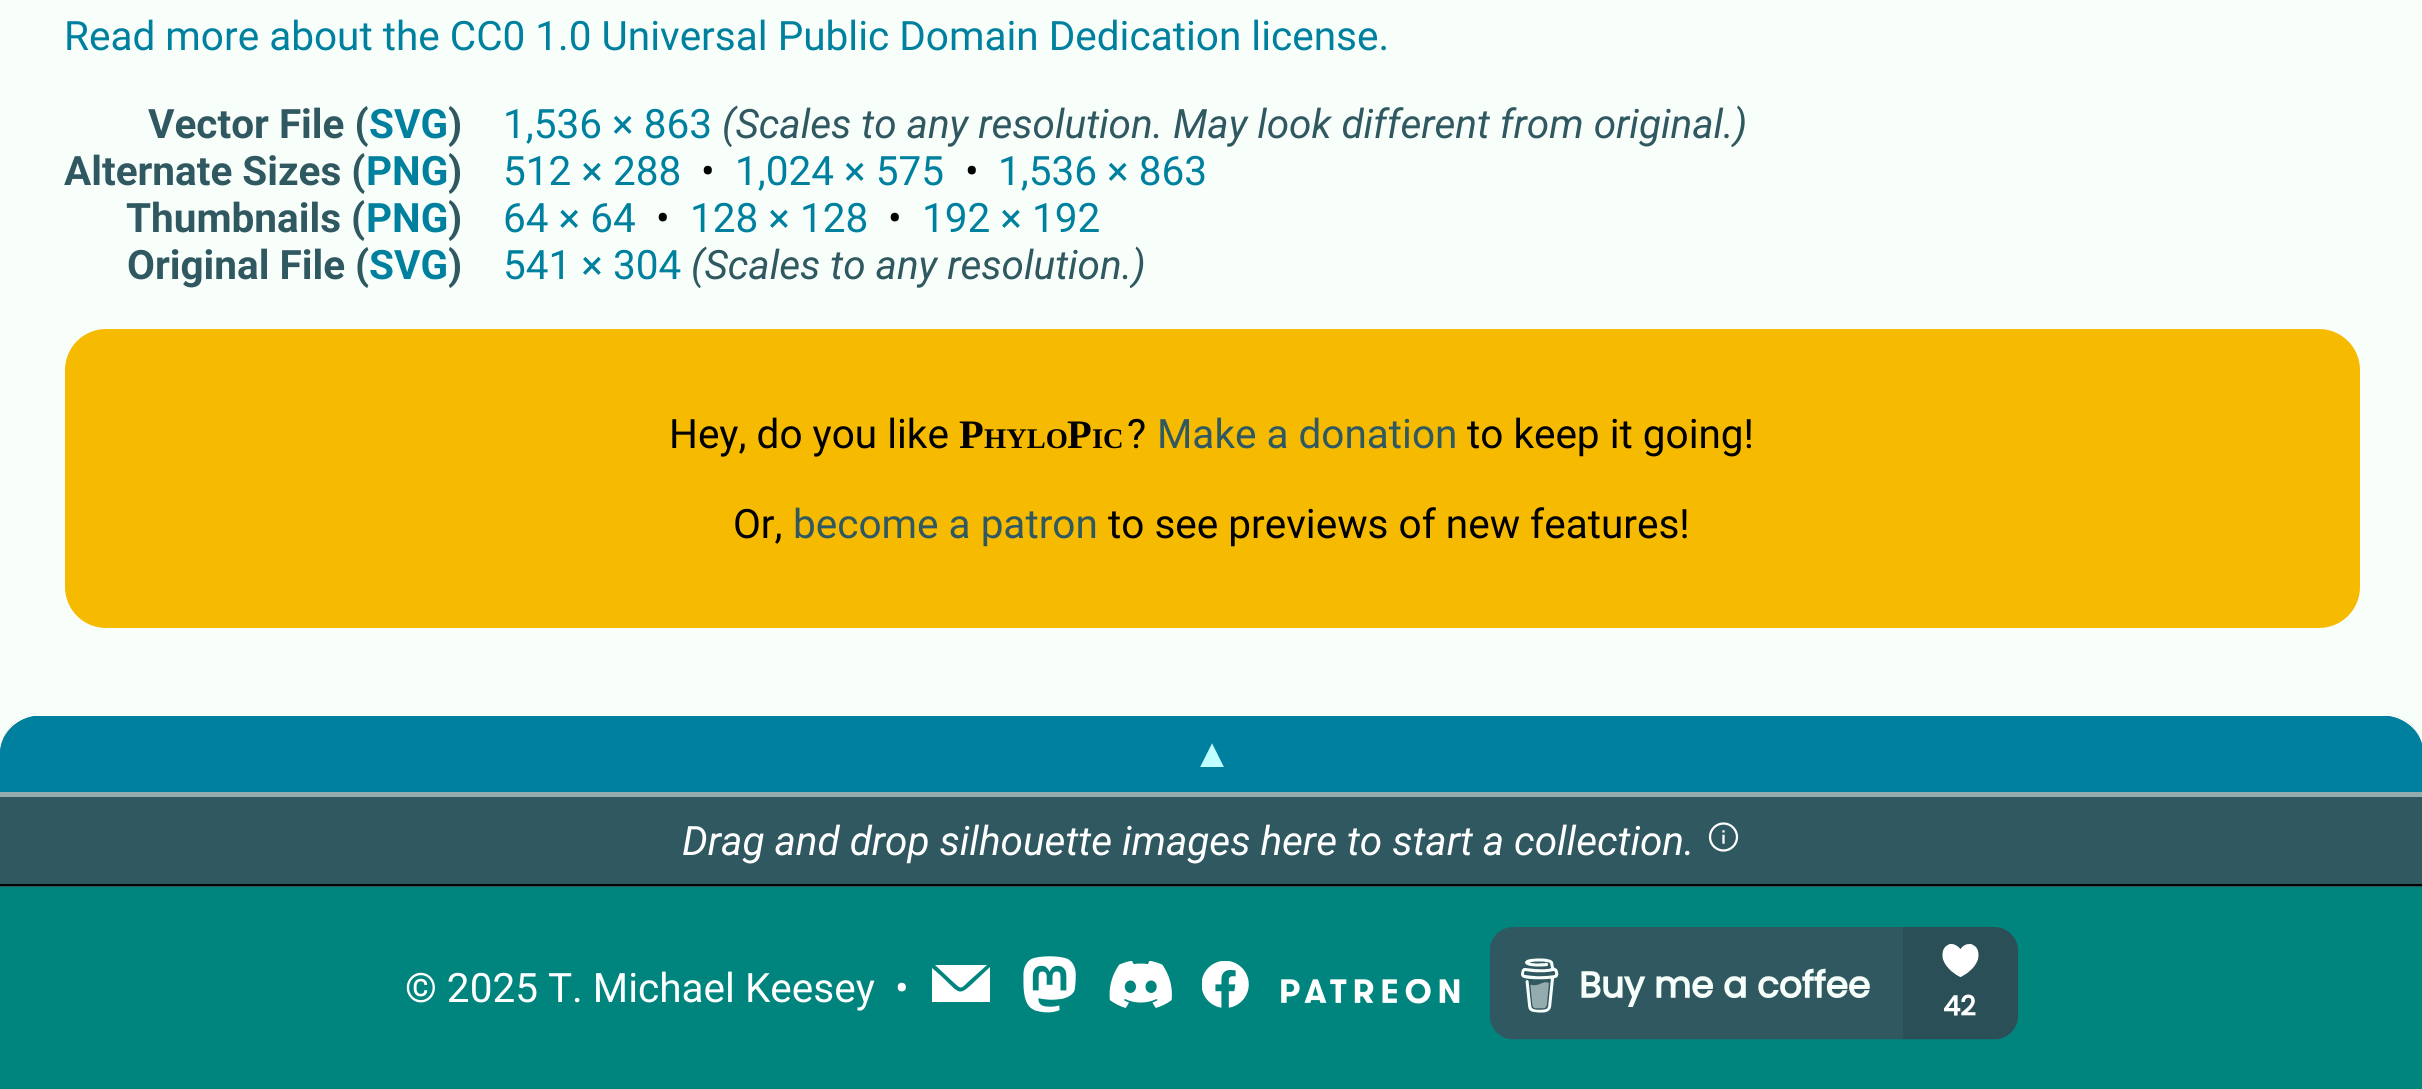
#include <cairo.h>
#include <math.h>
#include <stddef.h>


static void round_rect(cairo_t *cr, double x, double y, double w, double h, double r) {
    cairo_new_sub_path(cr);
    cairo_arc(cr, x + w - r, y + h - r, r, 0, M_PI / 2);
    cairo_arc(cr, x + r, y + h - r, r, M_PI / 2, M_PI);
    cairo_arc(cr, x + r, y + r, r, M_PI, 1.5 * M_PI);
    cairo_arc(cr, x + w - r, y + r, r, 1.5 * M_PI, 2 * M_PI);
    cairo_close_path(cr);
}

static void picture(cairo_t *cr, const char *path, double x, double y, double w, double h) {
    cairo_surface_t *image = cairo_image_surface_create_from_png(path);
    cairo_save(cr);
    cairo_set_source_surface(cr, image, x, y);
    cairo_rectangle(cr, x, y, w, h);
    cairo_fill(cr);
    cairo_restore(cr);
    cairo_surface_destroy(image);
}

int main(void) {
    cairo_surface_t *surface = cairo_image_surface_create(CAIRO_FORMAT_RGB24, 2422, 1089);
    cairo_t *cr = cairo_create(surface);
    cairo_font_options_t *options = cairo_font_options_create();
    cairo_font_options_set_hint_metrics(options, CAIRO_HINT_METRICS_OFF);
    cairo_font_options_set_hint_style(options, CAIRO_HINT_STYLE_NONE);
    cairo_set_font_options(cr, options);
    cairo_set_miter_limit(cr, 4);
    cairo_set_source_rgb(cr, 0.969, 1, 0.984);
    cairo_paint(cr);
    cairo_select_font_face(cr, "Roboto", CAIRO_FONT_SLANT_NORMAL, CAIRO_FONT_WEIGHT_NORMAL);
    cairo_set_font_size(cr, 40.5);
    cairo_set_source_rgb(cr, 0, 0.502, 0.624);
    cairo_move_to(cr, 64, 50);
    cairo_show_text(cr, "Read more about the CC0 1.0 Universal Public Domain Dedication license.");
    cairo_select_font_face(cr, "Roboto", CAIRO_FONT_SLANT_NORMAL, CAIRO_FONT_WEIGHT_BOLD);
    cairo_set_source_rgb(cr, 0.188, 0.345, 0.376);
    cairo_move_to(cr, 148, 138);
    cairo_show_text(cr, "Vector File (");
    cairo_set_source_rgb(cr, 0, 0.502, 0.624);
    cairo_move_to(cr, 369, 138);
    cairo_show_text(cr, "SVG");
    cairo_set_source_rgb(cr, 0.188, 0.345, 0.376);
    cairo_move_to(cr, 448, 138);
    cairo_show_text(cr, ")");
    cairo_select_font_face(cr, "Roboto", CAIRO_FONT_SLANT_NORMAL, CAIRO_FONT_WEIGHT_NORMAL);
    cairo_set_source_rgb(cr, 0, 0.502, 0.624);
    cairo_move_to(cr, 503, 138);
    cairo_show_text(cr, "1,536 × 863");
    cairo_select_font_face(cr, "Roboto", CAIRO_FONT_SLANT_ITALIC, CAIRO_FONT_WEIGHT_NORMAL);
    cairo_set_source_rgb(cr, 0.188, 0.345, 0.376);
    cairo_move_to(cr, 722, 138);
    cairo_show_text(cr, "(Scales to any resolution. May look different from original.)");
    cairo_select_font_face(cr, "Roboto", CAIRO_FONT_SLANT_NORMAL, CAIRO_FONT_WEIGHT_BOLD);
    cairo_move_to(cr, 64, 185);
    cairo_show_text(cr, "Alternate Sizes (");
    cairo_set_source_rgb(cr, 0, 0.502, 0.624);
    cairo_move_to(cr, 366, 185);
    cairo_show_text(cr, "PNG");
    cairo_set_source_rgb(cr, 0.188, 0.345, 0.376);
    cairo_move_to(cr, 448, 185);
    cairo_show_text(cr, ")");
    cairo_select_font_face(cr, "Roboto", CAIRO_FONT_SLANT_NORMAL, CAIRO_FONT_WEIGHT_NORMAL);
    cairo_set_source_rgb(cr, 0, 0.502, 0.624);
    cairo_move_to(cr, 503, 185);
    cairo_show_text(cr, "512 × 288");
    cairo_set_source_rgb(cr, 0, 0, 0);
    cairo_move_to(cr, 701, 185);
    cairo_show_text(cr, "•");
    cairo_set_source_rgb(cr, 0, 0.502, 0.624);
    cairo_move_to(cr, 735, 185);
    cairo_show_text(cr, "1,024 × 575");
    cairo_set_source_rgb(cr, 0, 0, 0);
    cairo_move_to(cr, 965, 185);
    cairo_show_text(cr, "•");
    cairo_set_source_rgb(cr, 0, 0.502, 0.624);
    cairo_move_to(cr, 998, 185);
    cairo_show_text(cr, "1,536 × 863");
    cairo_select_font_face(cr, "Roboto", CAIRO_FONT_SLANT_NORMAL, CAIRO_FONT_WEIGHT_BOLD);
    cairo_set_source_rgb(cr, 0.188, 0.345, 0.376);
    cairo_move_to(cr, 126, 232);
    cairo_show_text(cr, "Thumbnails (");
    cairo_set_source_rgb(cr, 0, 0.502, 0.624);
    cairo_move_to(cr, 366, 232);
    cairo_show_text(cr, "PNG");
    cairo_set_source_rgb(cr, 0.188, 0.345, 0.376);
    cairo_move_to(cr, 448, 232);
    cairo_show_text(cr, ")");
    cairo_select_font_face(cr, "Roboto", CAIRO_FONT_SLANT_NORMAL, CAIRO_FONT_WEIGHT_NORMAL);
    cairo_set_source_rgb(cr, 0, 0.502, 0.624);
    cairo_move_to(cr, 503, 232);
    cairo_show_text(cr, "64 × 64");
    cairo_set_source_rgb(cr, 0, 0, 0);
    cairo_move_to(cr, 656, 232);
    cairo_show_text(cr, "•");
    cairo_set_source_rgb(cr, 0, 0.502, 0.624);
    cairo_move_to(cr, 690, 232);
    cairo_show_text(cr, "128 × 128");
    cairo_set_source_rgb(cr, 0, 0, 0);
    cairo_move_to(cr, 888, 232);
    cairo_show_text(cr, "•");
    cairo_set_source_rgb(cr, 0, 0.502, 0.624);
    cairo_move_to(cr, 922, 232);
    cairo_show_text(cr, "192 × 192");
    cairo_select_font_face(cr, "Roboto", CAIRO_FONT_SLANT_NORMAL, CAIRO_FONT_WEIGHT_BOLD);
    cairo_set_source_rgb(cr, 0.188, 0.345, 0.376);
    cairo_move_to(cr, 127, 279);
    cairo_show_text(cr, "Original File (");
    cairo_set_source_rgb(cr, 0, 0.502, 0.624);
    cairo_move_to(cr, 369, 279);
    cairo_show_text(cr, "SVG");
    cairo_set_source_rgb(cr, 0.188, 0.345, 0.376);
    cairo_move_to(cr, 448, 279);
    cairo_show_text(cr, ")");
    cairo_select_font_face(cr, "Roboto", CAIRO_FONT_SLANT_NORMAL, CAIRO_FONT_WEIGHT_NORMAL);
    cairo_set_source_rgb(cr, 0, 0.502, 0.624);
    cairo_move_to(cr, 503, 279);
    cairo_show_text(cr, "541 × 304");
    cairo_select_font_face(cr, "Roboto", CAIRO_FONT_SLANT_ITALIC, CAIRO_FONT_WEIGHT_NORMAL);
    cairo_set_source_rgb(cr, 0.188, 0.345, 0.376);
    cairo_move_to(cr, 691, 279);
    cairo_show_text(cr, "(Scales to any resolution.)");
    cairo_set_source_rgb(cr, 0.961, 0.733, 0);
    round_rect(cr, 65, 329, 2295, 299, 41);
    cairo_fill(cr);
    cairo_select_font_face(cr, "Roboto", CAIRO_FONT_SLANT_NORMAL, CAIRO_FONT_WEIGHT_NORMAL);
    cairo_set_source_rgb(cr, 0, 0, 0);
    cairo_move_to(cr, 669, 448);
    cairo_show_text(cr, "Hey, do you like");
    cairo_select_font_face(cr, "Liberation Serif", CAIRO_FONT_SLANT_NORMAL, CAIRO_FONT_WEIGHT_BOLD);
    cairo_move_to(cr, 959, 448);
    cairo_show_text(cr, "P");
    cairo_set_font_size(cr, 28.5);
    cairo_move_to(cr, 984, 448);
    cairo_show_text(cr, "HYLO");
    cairo_set_font_size(cr, 40.5);
    cairo_move_to(cr, 1067, 448);
    cairo_show_text(cr, "P");
    cairo_set_font_size(cr, 28.5);
    cairo_move_to(cr, 1092, 448);
    cairo_show_text(cr, "IC");
    cairo_select_font_face(cr, "Roboto", CAIRO_FONT_SLANT_NORMAL, CAIRO_FONT_WEIGHT_NORMAL);
    cairo_set_font_size(cr, 40.5);
    cairo_move_to(cr, 1127, 448);
    cairo_show_text(cr, "?");
    cairo_set_source_rgb(cr, 0.188, 0.345, 0.376);
    cairo_move_to(cr, 1157, 448);
    cairo_show_text(cr, "Make a donation");
    cairo_set_source_rgb(cr, 0, 0, 0);
    cairo_move_to(cr, 1467, 448);
    cairo_show_text(cr, "to keep it going!");
    cairo_move_to(cr, 733, 538);
    cairo_show_text(cr, "Or,");
    cairo_set_source_rgb(cr, 0.188, 0.345, 0.376);
    cairo_move_to(cr, 793, 538);
    cairo_show_text(cr, "become a patron");
    cairo_set_source_rgb(cr, 0, 0, 0);
    cairo_move_to(cr, 1108, 538);
    cairo_show_text(cr, "to see previews of new features!");
    cairo_set_source_rgb(cr, 0.188, 0.345, 0.376);
    cairo_new_path(cr);
    cairo_move_to(cr, 41, 713);
    cairo_line_to(cr, 2382, 713);
    cairo_curve_to(cr, 2404.5, 713, 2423, 731.5, 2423, 754);
    cairo_line_to(cr, 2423, 887);
    cairo_line_to(cr, 0, 887);
    cairo_line_to(cr, 0, 754);
    cairo_curve_to(cr, 0, 731.5, 18.5, 713, 41, 713);
    cairo_close_path(cr);
    cairo_fill(cr);
    cairo_set_source_rgb(cr, 0.969, 1, 0.984);
    cairo_new_path(cr);
    cairo_move_to(cr, 40, 716);
    cairo_line_to(cr, 2383, 716);
    cairo_curve_to(cr, 2405, 716, 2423, 733, 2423, 754);
    cairo_curve_to(cr, 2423, 733, 2407, 715, 2387, 713);
    cairo_line_to(cr, 36, 713);
    cairo_curve_to(cr, 16, 715, 0, 733, 0, 754);
    cairo_curve_to(cr, 0, 733, 18, 716, 40, 716);
    cairo_close_path(cr);
    cairo_fill(cr);
    cairo_set_source_rgb(cr, 0, 0, 0);
    cairo_rectangle(cr, 0, 884, 2422, 2);
    cairo_fill(cr);
    cairo_set_source_rgb(cr, 0, 0.502, 0.624);
    cairo_new_path(cr);
    cairo_move_to(cr, 0, 754);
    cairo_line_to(cr, 0, 797);
    cairo_line_to(cr, 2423, 797);
    cairo_line_to(cr, 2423, 749);
    cairo_curve_to(cr, 2421, 732, 2407, 719, 2389, 716);
    cairo_line_to(cr, 34, 716);
    cairo_curve_to(cr, 15, 719, 0, 735, 0, 754);
    cairo_close_path(cr);
    cairo_fill(cr);
    cairo_set_source_rgb(cr, 0.58, 0.675, 0.682);
    cairo_rectangle(cr, 0, 792, 2422, 5);
    cairo_fill(cr);
    cairo_select_font_face(cr, "Liberation Sans", CAIRO_FONT_SLANT_NORMAL, CAIRO_FONT_WEIGHT_NORMAL);
    cairo_set_source_rgb(cr, 0.753, 1, 1);
    cairo_move_to(cr, 1192, 767);
    cairo_show_text(cr, "▲");
    cairo_select_font_face(cr, "Roboto", CAIRO_FONT_SLANT_ITALIC, CAIRO_FONT_WEIGHT_NORMAL);
    cairo_set_source_rgb(cr, 1, 1, 1);
    cairo_move_to(cr, 682, 855);
    cairo_show_text(cr, "Drag and drop silhouette images here to start a collection.");
    picture(cr, "img1.png", 1708, 822, 31, 30);
    cairo_set_source_rgb(cr, 0, 0.522, 0.494);
    cairo_rectangle(cr, 0, 887, 2422, 202);
    cairo_fill(cr);
    cairo_select_font_face(cr, "Roboto", CAIRO_FONT_SLANT_NORMAL, CAIRO_FONT_WEIGHT_NORMAL);
    cairo_set_source_rgb(cr, 1, 1, 1);
    cairo_move_to(cr, 405, 1002);
    cairo_show_text(cr, "© 2025 T. Michael Keesey");
    cairo_move_to(cr, 895, 1002);
    cairo_show_text(cr, "•");
    cairo_new_path(cr);
    cairo_move_to(cr, 990, 967);
    cairo_line_to(cr, 990, 1002);
    cairo_line_to(cr, 932, 1002);
    cairo_line_to(cr, 932, 968);
    cairo_curve_to(cr, 967, 997, 952, 1002, 990, 967);
    cairo_close_path(cr);
    cairo_fill(cr);
    cairo_new_path(cr);
    cairo_move_to(cr, 935, 965);
    cairo_line_to(cr, 987, 965);
    cairo_line_to(cr, 968, 982);
    cairo_curve_to(cr, 960, 990, 961, 989, 952, 981);
    cairo_close_path(cr);
    cairo_fill(cr);
    picture(cr, "img2.png", 1023, 956, 53, 57);
    picture(cr, "img3.png", 1109, 961, 63, 47);
    picture(cr, "img4.png", 1202, 961, 47, 47);
    picture(cr, "img5.png", 1281, 979, 179, 25);
    picture(cr, "img6.png", 1490, 927, 528, 113);
    cairo_surface_write_to_png(surface, "page.png");
    cairo_font_options_destroy(options);
    cairo_destroy(cr);
    cairo_surface_destroy(surface);
    return 0;
}
